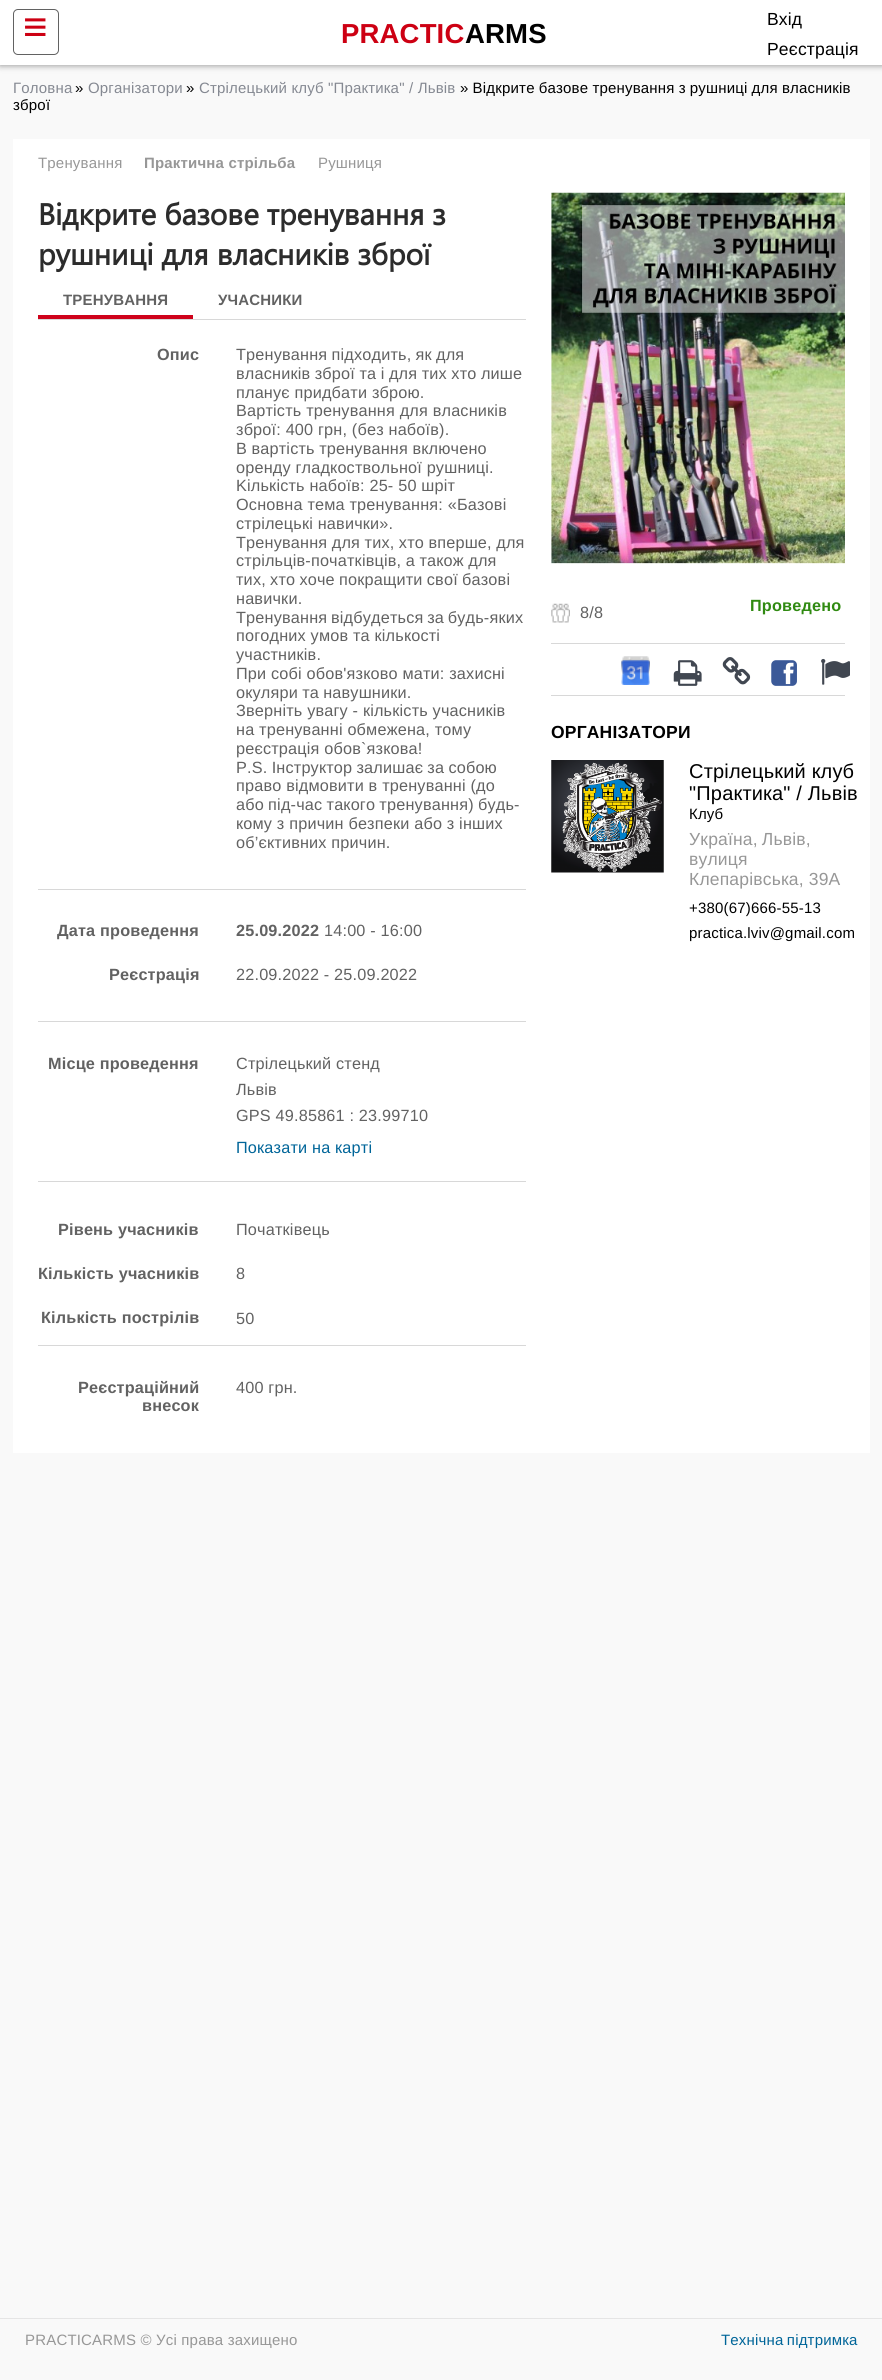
#include <cairo.h>
#include <math.h>
#include <stddef.h>


static void spaced_text(cairo_t *cr, double x, double y, const char *s, double letter, double word) {
    cairo_move_to(cr, x, y);
    while (*s) {
        char ch[5] = {0};
        int n = 0;
        do ch[n++] = *s++; while ((*s & 0xC0) == 0x80);
        cairo_show_text(cr, ch);
        cairo_rel_move_to(cr, letter + word * (*ch == ' '), 0);
    }
}

static void round_rect(cairo_t *cr, double x, double y, double w, double h, double r) {
    cairo_new_sub_path(cr);
    cairo_arc(cr, x + w - r, y + h - r, r, 0, M_PI / 2);
    cairo_arc(cr, x + r, y + h - r, r, M_PI / 2, M_PI);
    cairo_arc(cr, x + r, y + r, r, M_PI, 1.5 * M_PI);
    cairo_arc(cr, x + w - r, y + r, r, 1.5 * M_PI, 2 * M_PI);
    cairo_close_path(cr);
}

static void shadow(cairo_t *cr, double x, double y, double w, double h, double r, double blur, double alpha) {
    cairo_push_group_with_content(cr, CAIRO_CONTENT_ALPHA);
    cairo_set_operator(cr, CAIRO_OPERATOR_SOURCE);
    for (int i = 15; i >= -15 && fmin(w, h) + blur * i / 3 > 0; i -= 2) {
        double e = blur * i / 6;
        cairo_set_source_rgba(cr, 0, 0, 0, alpha * erfc((i - 1) / 8.5) / 2);
        round_rect(cr, x - e, y - e, w + 2 * e, h + 2 * e, fmax(0, fmin(r + e + blur * .6, fmin(w, h) / 2 + e)));
        cairo_fill(cr);
    }
    cairo_pattern_t *soft = cairo_pop_group(cr);
    cairo_mask(cr, soft);
    cairo_pattern_destroy(soft);
}

static void picture(cairo_t *cr, const char *path, double x, double y, double w, double h) {
    cairo_surface_t *image = cairo_image_surface_create_from_png(path);
    cairo_save(cr);
    cairo_set_source_surface(cr, image, x, y);
    cairo_rectangle(cr, x, y, w, h);
    cairo_fill(cr);
    cairo_restore(cr);
    cairo_surface_destroy(image);
}

int main(void) {
    cairo_surface_t *surface = cairo_image_surface_create(CAIRO_FORMAT_RGB24, 882, 2380);
    cairo_t *cr = cairo_create(surface);
    cairo_font_options_t *options = cairo_font_options_create();
    cairo_font_options_set_hint_metrics(options, CAIRO_HINT_METRICS_OFF);
    cairo_font_options_set_hint_style(options, CAIRO_HINT_STYLE_NONE);
    cairo_set_font_options(cr, options);
    cairo_set_miter_limit(cr, 4);
    cairo_set_source_rgb(cr, 0.976, 0.976, 0.976);
    cairo_paint(cr);
    cairo_set_source_rgb(cr, 0.384, 0.384, 0.384);
    shadow(cr, 0, 1, 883, 65, 0, 3, 0.6);
    cairo_set_source_rgb(cr, 1, 1, 1);
    cairo_rectangle(cr, 0, 0, 882, 65);
    cairo_fill(cr);
    round_rect(cr, 13.5, 9.5, 45, 45, 4.5);
    cairo_set_source_rgb(cr, 0.384, 0.384, 0.384);
    cairo_set_line_width(cr, 1);
    cairo_stroke(cr);
    cairo_select_font_face(cr, "Liberation Sans", CAIRO_FONT_SLANT_NORMAL, CAIRO_FONT_WEIGHT_NORMAL);
    cairo_set_font_size(cr, 42);
    cairo_set_source_rgb(cr, 0.804, 0, 0.078);
    spaced_text(cr, 23, 41, "≡", 0.18, 0);
    cairo_select_font_face(cr, "Liberation Sans", CAIRO_FONT_SLANT_NORMAL, CAIRO_FONT_WEIGHT_BOLD);
    cairo_set_font_size(cr, 27.5);
    spaced_text(cr, 341, 43, "PRACTIC", 0.18, 0);
    cairo_set_source_rgb(cr, 0, 0, 0);
    spaced_text(cr, 465, 43, "ARMS", 0.18, 0);
    cairo_select_font_face(cr, "Liberation Sans", CAIRO_FONT_SLANT_NORMAL, CAIRO_FONT_WEIGHT_NORMAL);
    cairo_set_font_size(cr, 17.5);
    spaced_text(cr, 767, 25, "Вхід", 0.18, 0);
    spaced_text(cr, 767, 55, "Реєстрація", 0.18, 0);
    cairo_set_font_size(cr, 15);
    cairo_set_source_rgb(cr, 0.522, 0.537, 0.573);
    spaced_text(cr, 13, 93, "Головна", 0.18, 0);
    cairo_set_source_rgb(cr, 0, 0, 0);
    spaced_text(cr, 75, 93, "»", 0.18, 0);
    cairo_set_source_rgb(cr, 0.522, 0.537, 0.573);
    spaced_text(cr, 88, 93, "Організатори", 0.18, 0);
    cairo_set_source_rgb(cr, 0, 0, 0);
    spaced_text(cr, 186, 93, "»", 0.18, 0);
    cairo_set_source_rgb(cr, 0.522, 0.537, 0.573);
    spaced_text(cr, 199, 93, "Стрілецький клуб \"Практика\" / Львів", 0.18, 0);
    cairo_set_source_rgb(cr, 0, 0, 0);
    spaced_text(cr, 460, 93, "» Відкрите базове тренування з рушниці для власників", 0.18, -0.25);
    spaced_text(cr, 13, 110, "зброї", 0.18, 0);
    cairo_set_source_rgb(cr, 1, 1, 1);
    cairo_rectangle(cr, 13, 139, 857, 1314);
    cairo_fill(cr);
    cairo_set_source_rgb(cr, 0.592, 0.592, 0.592);
    spaced_text(cr, 38, 168, "Тренування", 0.18, 0);
    cairo_select_font_face(cr, "Liberation Sans", CAIRO_FONT_SLANT_NORMAL, CAIRO_FONT_WEIGHT_BOLD);
    spaced_text(cr, 144, 168, "Практична стрільба", 0.18, 0);
    cairo_select_font_face(cr, "Liberation Sans", CAIRO_FONT_SLANT_NORMAL, CAIRO_FONT_WEIGHT_NORMAL);
    spaced_text(cr, 318, 168, "Рушниця", 0.18, 0);
    cairo_select_font_face(cr, "Segoe UI", CAIRO_FONT_SLANT_NORMAL, CAIRO_FONT_WEIGHT_BOLD);
    cairo_set_font_size(cr, 30);
    cairo_set_source_rgb(cr, 0.173, 0.173, 0.173);
    spaced_text(cr, 38, 225, "Відкрите базове тренування з", -0.1, 0);
    spaced_text(cr, 38, 265, "рушниці для власників зброї", -0.1, 0);
    cairo_set_source_rgb(cr, 0.847, 0.847, 0.847);
    cairo_rectangle(cr, 38, 319, 488, 1);
    cairo_fill(cr);
    cairo_set_source_rgb(cr, 0.812, 0.008, 0.106);
    cairo_rectangle(cr, 38, 315, 155, 4);
    cairo_fill(cr);
    cairo_select_font_face(cr, "Liberation Sans", CAIRO_FONT_SLANT_NORMAL, CAIRO_FONT_WEIGHT_BOLD);
    cairo_set_font_size(cr, 15);
    cairo_set_source_rgb(cr, 0.384, 0.384, 0.384);
    spaced_text(cr, 63, 305, "ТРЕНУВАННЯ", 0.18, 0);
    spaced_text(cr, 218, 305, "УЧАСНИКИ", 0.18, 0);
    cairo_set_font_size(cr, 16.25);
    spaced_text(cr, 157, 360, "Опис", 0.18, 0);
    cairo_select_font_face(cr, "Liberation Sans", CAIRO_FONT_SLANT_NORMAL, CAIRO_FONT_WEIGHT_NORMAL);
    spaced_text(cr, 236, 360, "Тренування підходить, як для", 0.18, -0.5);
    spaced_text(cr, 236, 379, "власників зброї та і для тих хто лише", 0.18, -0.25);
    spaced_text(cr, 236, 398, "планує придбати зброю.", 0.18, 0);
    spaced_text(cr, 236, 416, "Вартість тренування для власників", 0.18, 0);
    spaced_text(cr, 236, 435, "зброї: 400 грн, (без набоїв).", 0.18, 0);
    spaced_text(cr, 236, 454, "В вартість тренування включено", 0.18, -0.25);
    spaced_text(cr, 236, 473, "оренду гладкоствольної рушниці.", 0.18, 0);
    spaced_text(cr, 236, 491, "Kількість набоїв: 25- 50 шріт", 0.18, 0);
    spaced_text(cr, 236, 510, "Основна тема тренування: «Базові", 0.18, 0);
    spaced_text(cr, 236, 529, "стрілецькі навички».", 0.18, 0);
    spaced_text(cr, 236, 548, "Тренування для тих, хто вперше, для", 0.18, -0.25);
    spaced_text(cr, 236, 566, "стрільців-початківців, а також для", 0.18, -0.25);
    spaced_text(cr, 236, 585, "тих, хто хоче покращити свої базові", 0.18, -0.5);
    spaced_text(cr, 236, 604, "навички.", 0.18, 0);
    spaced_text(cr, 236, 623, "Тренування відбудеться за будь-яких", 0.18, -1);
    spaced_text(cr, 236, 641, "погодних умов та кількості", 0.18, 0);
    spaced_text(cr, 236, 660, "участників.", 0.18, 0);
    spaced_text(cr, 236, 679, "При собі обов'язково мати: захисні", 0.18, 0);
    spaced_text(cr, 236, 698, "окуляри та навушники.", 0.18, -0.5);
    spaced_text(cr, 236, 716, "Зверніть увагу - кількість учасників", 0.18, 0);
    spaced_text(cr, 236, 735, "на тренуванні обмежена, тому", 0.18, 0);
    spaced_text(cr, 236, 754, "реєстрація обов`язкова!", 0.18, 0);
    spaced_text(cr, 236, 773, "P.S. Інструктор залишає за собою", 0.18, -0.5);
    spaced_text(cr, 236, 791, "право відмовити в тренуванні (до", 0.18, 0);
    spaced_text(cr, 236, 810, "або під-час такого тренування) будь-", 0.18, -0.5);
    spaced_text(cr, 236, 829, "кому з причин безпеки або з інших", 0.18, 0);
    spaced_text(cr, 236, 848, "об’єктивних причин.", 0.18, 0);
    cairo_set_source_rgb(cr, 0.847, 0.847, 0.847);
    cairo_rectangle(cr, 38, 889, 488, 1);
    cairo_fill(cr);
    cairo_select_font_face(cr, "Liberation Sans", CAIRO_FONT_SLANT_NORMAL, CAIRO_FONT_WEIGHT_BOLD);
    cairo_set_source_rgb(cr, 0.384, 0.384, 0.384);
    spaced_text(cr, 57, 936, "Дата проведення", 0.18, 0);
    spaced_text(cr, 236, 936, "25.09.2022", 0.18, 0);
    cairo_select_font_face(cr, "Liberation Sans", CAIRO_FONT_SLANT_NORMAL, CAIRO_FONT_WEIGHT_NORMAL);
    spaced_text(cr, 324, 936, "14:00 - 16:00", 0.18, 0);
    cairo_select_font_face(cr, "Liberation Sans", CAIRO_FONT_SLANT_NORMAL, CAIRO_FONT_WEIGHT_BOLD);
    spaced_text(cr, 109, 980, "Реєстрація", 0.18, 0);
    cairo_select_font_face(cr, "Liberation Sans", CAIRO_FONT_SLANT_NORMAL, CAIRO_FONT_WEIGHT_NORMAL);
    spaced_text(cr, 236, 980, "22.09.2022 - 25.09.2022", 0.18, 0);
    cairo_set_source_rgb(cr, 0.847, 0.847, 0.847);
    cairo_rectangle(cr, 38, 1021, 488, 1);
    cairo_fill(cr);
    cairo_rectangle(cr, 38, 1181, 488, 1);
    cairo_fill(cr);
    cairo_select_font_face(cr, "Liberation Sans", CAIRO_FONT_SLANT_NORMAL, CAIRO_FONT_WEIGHT_BOLD);
    cairo_set_source_rgb(cr, 0.384, 0.384, 0.384);
    spaced_text(cr, 48, 1069, "Місце проведення", 0.18, 0);
    cairo_select_font_face(cr, "Liberation Sans", CAIRO_FONT_SLANT_NORMAL, CAIRO_FONT_WEIGHT_NORMAL);
    spaced_text(cr, 236, 1069, "Стрілецький стенд", 0.18, 0);
    spaced_text(cr, 236, 1095, "Львів", 0.18, 0);
    spaced_text(cr, 236, 1121, "GPS 49.85861 : 23.99710", 0.18, 0);
    cairo_set_source_rgb(cr, 0, 0.396, 0.6);
    spaced_text(cr, 236, 1153, "Показати на карті", 0.18, 0);
    cairo_select_font_face(cr, "Liberation Sans", CAIRO_FONT_SLANT_NORMAL, CAIRO_FONT_WEIGHT_BOLD);
    cairo_set_source_rgb(cr, 0.384, 0.384, 0.384);
    spaced_text(cr, 58, 1235, "Рівень учасників", 0.18, 0);
    cairo_select_font_face(cr, "Liberation Sans", CAIRO_FONT_SLANT_NORMAL, CAIRO_FONT_WEIGHT_NORMAL);
    spaced_text(cr, 236, 1235, "Початківець", 0.18, 0);
    cairo_select_font_face(cr, "Liberation Sans", CAIRO_FONT_SLANT_NORMAL, CAIRO_FONT_WEIGHT_BOLD);
    spaced_text(cr, 38, 1279, "Кількість учасників", 0.18, 0);
    cairo_select_font_face(cr, "Liberation Sans", CAIRO_FONT_SLANT_NORMAL, CAIRO_FONT_WEIGHT_NORMAL);
    spaced_text(cr, 236, 1279, "8", 0.18, 0);
    cairo_select_font_face(cr, "Liberation Sans", CAIRO_FONT_SLANT_NORMAL, CAIRO_FONT_WEIGHT_BOLD);
    spaced_text(cr, 41, 1323, "Кількість пострілів", 0.18, 0);
    cairo_select_font_face(cr, "Liberation Sans", CAIRO_FONT_SLANT_NORMAL, CAIRO_FONT_WEIGHT_NORMAL);
    spaced_text(cr, 236, 1324, "50", 0.18, 0);
    cairo_set_source_rgb(cr, 0.847, 0.847, 0.847);
    cairo_rectangle(cr, 38, 1345, 488, 1);
    cairo_fill(cr);
    cairo_select_font_face(cr, "Liberation Sans", CAIRO_FONT_SLANT_NORMAL, CAIRO_FONT_WEIGHT_BOLD);
    cairo_set_source_rgb(cr, 0.384, 0.384, 0.384);
    spaced_text(cr, 78, 1393, "Реєстраційний", 0.18, 0);
    spaced_text(cr, 142, 1411, "внесок", 0.18, 0);
    cairo_select_font_face(cr, "Liberation Sans", CAIRO_FONT_SLANT_NORMAL, CAIRO_FONT_WEIGHT_NORMAL);
    spaced_text(cr, 236, 1393, "400 грн.", 0.18, 0);
    picture(cr, "img1.png", 551, 192, 294, 372);
    picture(cr, "img2.png", 551, 603, 19, 20);
    spaced_text(cr, 580, 618, "8/8", 0.18, 0);
    cairo_select_font_face(cr, "Liberation Sans", CAIRO_FONT_SLANT_NORMAL, CAIRO_FONT_WEIGHT_BOLD);
    cairo_set_source_rgb(cr, 0.188, 0.541, 0.067);
    spaced_text(cr, 750, 611, "Проведено", 0.18, 0);
    cairo_set_source_rgb(cr, 0.847, 0.847, 0.847);
    cairo_rectangle(cr, 551, 643, 294, 1);
    cairo_fill(cr);
    cairo_rectangle(cr, 551, 695, 294, 1);
    cairo_fill(cr);
    picture(cr, "img3.png", 621, 656, 29, 29);
    picture(cr, "img4.png", 673, 660, 29, 26);
    picture(cr, "img5.png", 722, 657, 29, 28);
    picture(cr, "img6.png", 771, 660, 26, 26);
    picture(cr, "img7.png", 821, 658, 29, 27);
    cairo_set_font_size(cr, 17.5);
    cairo_set_source_rgb(cr, 0, 0, 0);
    spaced_text(cr, 551, 738, "ОРГАНІЗАТОРИ", 0.18, 0);
    picture(cr, "img8.png", 551, 760, 113, 113);
    cairo_select_font_face(cr, "Liberation Sans", CAIRO_FONT_SLANT_NORMAL, CAIRO_FONT_WEIGHT_NORMAL);
    cairo_set_font_size(cr, 20);
    spaced_text(cr, 689, 778, "Стрілецький клуб", 0.18, 0);
    spaced_text(cr, 689, 800, "\"Практика\" / Львів", 0.18, 0);
    cairo_set_font_size(cr, 15);
    spaced_text(cr, 689, 819, "Клуб", 0.18, 0);
    cairo_set_font_size(cr, 17.5);
    cairo_set_source_rgb(cr, 0.592, 0.592, 0.592);
    spaced_text(cr, 689, 845, "Україна, Львів,", 0.18, -1);
    spaced_text(cr, 689, 865, "вулиця", 0.18, 0);
    spaced_text(cr, 689, 885, "Клепарівська, 39А", 0.18, 0);
    cairo_set_font_size(cr, 15);
    cairo_set_source_rgb(cr, 0, 0, 0);
    spaced_text(cr, 689, 913, "+380(67)666-55-13", 0.18, 0);
    spaced_text(cr, 689, 938, "practica.lviv@gmail.com", 0.18, 0);
    cairo_set_source_rgb(cr, 0.898, 0.898, 0.898);
    cairo_rectangle(cr, 0, 2318, 882, 1);
    cairo_fill(cr);
    cairo_set_source_rgb(cr, 0.592, 0.592, 0.592);
    spaced_text(cr, 25, 2345, "PRACTICARMS © Уcі права захищено", 0.18, 0);
    cairo_set_source_rgb(cr, 0, 0.396, 0.6);
    spaced_text(cr, 721, 2345, "Технічна підтримка", 0.18, -1);
    cairo_surface_write_to_png(surface, "page.png");
    cairo_font_options_destroy(options);
    cairo_destroy(cr);
    cairo_surface_destroy(surface);
    return 0;
}
